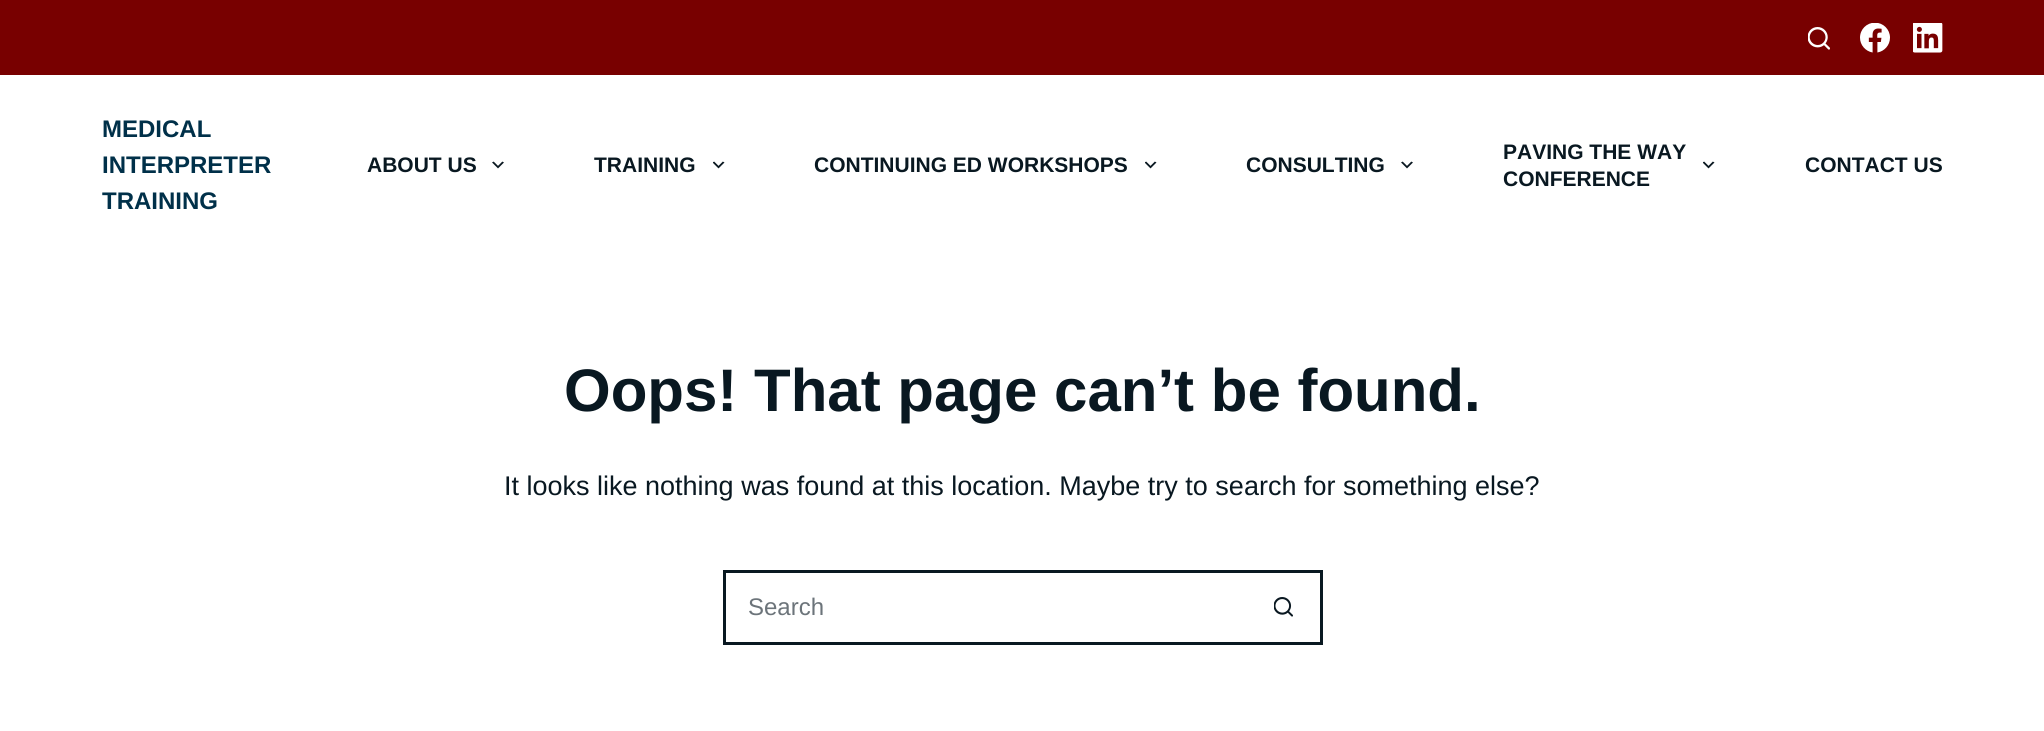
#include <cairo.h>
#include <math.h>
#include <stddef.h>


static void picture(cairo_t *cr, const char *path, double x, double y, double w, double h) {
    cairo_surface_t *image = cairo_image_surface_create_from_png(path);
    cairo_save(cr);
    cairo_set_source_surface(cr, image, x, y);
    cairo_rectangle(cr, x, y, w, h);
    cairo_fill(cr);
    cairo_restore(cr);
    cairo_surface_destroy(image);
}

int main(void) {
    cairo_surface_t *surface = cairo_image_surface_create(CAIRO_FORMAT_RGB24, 2044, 731);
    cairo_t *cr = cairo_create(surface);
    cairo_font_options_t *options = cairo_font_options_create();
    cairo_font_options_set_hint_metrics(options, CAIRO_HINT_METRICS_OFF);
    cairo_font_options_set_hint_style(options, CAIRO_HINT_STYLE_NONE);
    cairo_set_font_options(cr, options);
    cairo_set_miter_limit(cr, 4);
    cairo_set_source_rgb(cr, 1, 1, 1);
    cairo_paint(cr);
    cairo_set_source_rgb(cr, 0.471, 0, 0);
    cairo_rectangle(cr, 0, 0, 2044, 75);
    cairo_fill(cr);
    picture(cr, "img1.png", 1808, 27, 22, 23);
    picture(cr, "img2.png", 1860, 23, 30, 30);
    picture(cr, "img3.png", 1913, 23, 30, 30);
    cairo_select_font_face(cr, "Liberation Sans", CAIRO_FONT_SLANT_NORMAL, CAIRO_FONT_WEIGHT_BOLD);
    cairo_set_font_size(cr, 24);
    cairo_set_source_rgb(cr, 0, 0.188, 0.286);
    cairo_move_to(cr, 102, 137);
    cairo_show_text(cr, "MEDICAL");
    cairo_move_to(cr, 102, 173);
    cairo_show_text(cr, "INTERPRETER");
    cairo_move_to(cr, 102, 209);
    cairo_show_text(cr, "TRAINING");
    cairo_set_font_size(cr, 21);
    cairo_set_source_rgb(cr, 0.039, 0.094, 0.129);
    cairo_move_to(cr, 367, 172);
    cairo_show_text(cr, "ABOUT US");
    picture(cr, "img4.png", 492, 161, 12, 8);
    cairo_move_to(cr, 594, 172);
    cairo_show_text(cr, "TRAINING");
    picture(cr, "img5.png", 713, 161, 12, 8);
    cairo_move_to(cr, 814, 172);
    cairo_show_text(cr, "CONTINUING ED WORKSHOPS");
    picture(cr, "img5.png", 1145, 161, 12, 8);
    cairo_move_to(cr, 1246, 172);
    cairo_show_text(cr, "CONSULTING");
    picture(cr, "img4.png", 1401, 161, 12, 8);
    cairo_move_to(cr, 1503, 159);
    cairo_show_text(cr, "PAVING THE WAY");
    picture(cr, "img5.png", 1703, 161, 12, 8);
    cairo_move_to(cr, 1503, 186);
    cairo_show_text(cr, "CONFERENCE");
    cairo_move_to(cr, 1805, 172);
    cairo_show_text(cr, "CONTACT US");
    cairo_set_font_size(cr, 60);
    cairo_move_to(cr, 564, 411);
    cairo_show_text(cr, "Oops! That page can’t be found.");
    cairo_select_font_face(cr, "Liberation Sans", CAIRO_FONT_SLANT_NORMAL, CAIRO_FONT_WEIGHT_NORMAL);
    cairo_set_font_size(cr, 27);
    cairo_move_to(cr, 504, 495);
    cairo_show_text(cr, "It looks like nothing was found at this location. Maybe try to search for something else?");
    cairo_rectangle(cr, 723, 570, 600, 3);
    cairo_fill(cr);
    cairo_rectangle(cr, 723, 642, 525, 3);
    cairo_fill(cr);
    cairo_rectangle(cr, 723, 570, 3, 75);
    cairo_fill(cr);
    cairo_set_font_size(cr, 24);
    cairo_set_source_rgb(cr, 0.424, 0.455, 0.478);
    cairo_move_to(cr, 748, 615);
    cairo_show_text(cr, "Search");
    cairo_set_source_rgb(cr, 0.039, 0.094, 0.129);
    cairo_rectangle(cr, 1320, 570, 3, 75);
    cairo_fill(cr);
    cairo_rectangle(cr, 1248, 642, 75, 3);
    cairo_fill(cr);
    picture(cr, "img6.png", 1274, 597, 19, 20);
    cairo_surface_write_to_png(surface, "page.png");
    cairo_font_options_destroy(options);
    cairo_destroy(cr);
    cairo_surface_destroy(surface);
    return 0;
}
